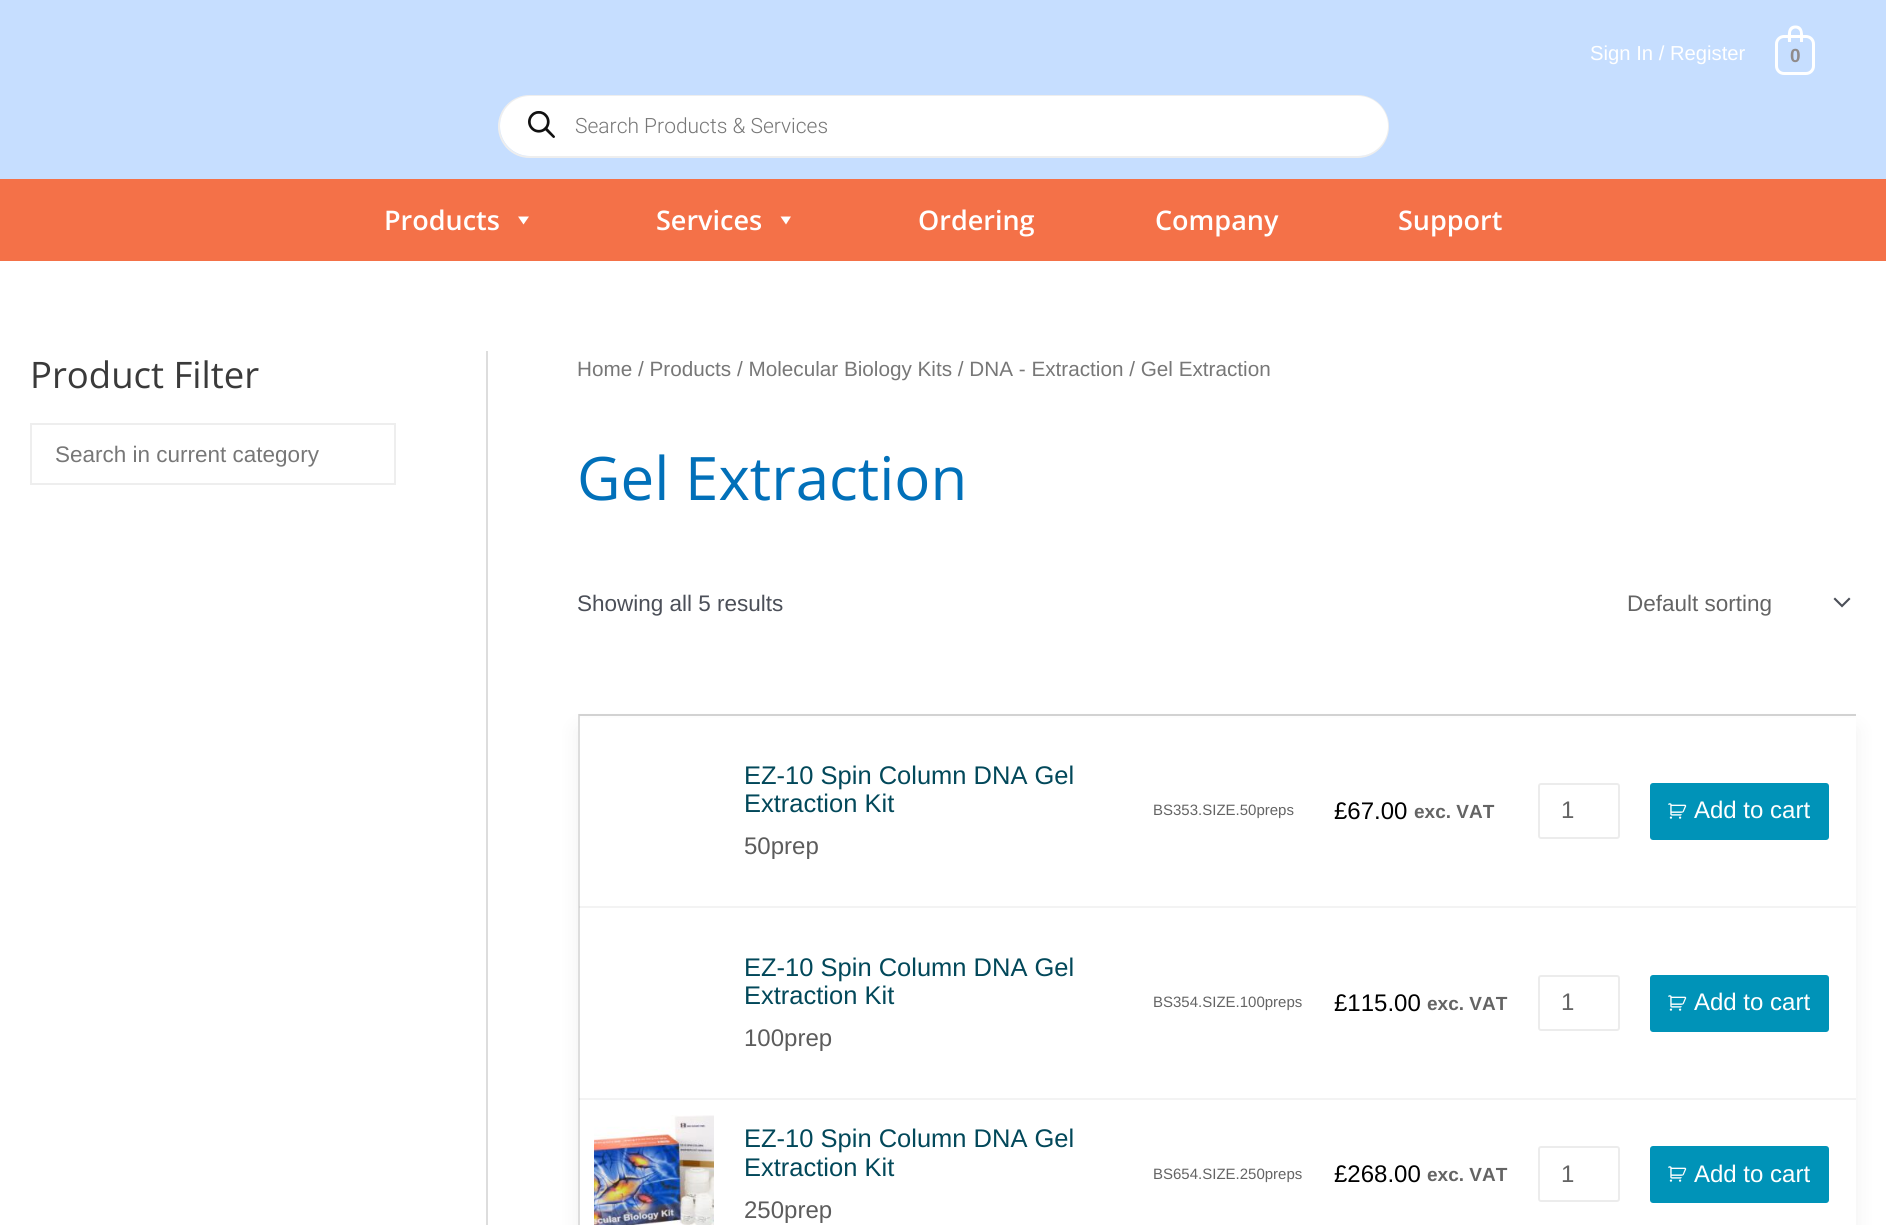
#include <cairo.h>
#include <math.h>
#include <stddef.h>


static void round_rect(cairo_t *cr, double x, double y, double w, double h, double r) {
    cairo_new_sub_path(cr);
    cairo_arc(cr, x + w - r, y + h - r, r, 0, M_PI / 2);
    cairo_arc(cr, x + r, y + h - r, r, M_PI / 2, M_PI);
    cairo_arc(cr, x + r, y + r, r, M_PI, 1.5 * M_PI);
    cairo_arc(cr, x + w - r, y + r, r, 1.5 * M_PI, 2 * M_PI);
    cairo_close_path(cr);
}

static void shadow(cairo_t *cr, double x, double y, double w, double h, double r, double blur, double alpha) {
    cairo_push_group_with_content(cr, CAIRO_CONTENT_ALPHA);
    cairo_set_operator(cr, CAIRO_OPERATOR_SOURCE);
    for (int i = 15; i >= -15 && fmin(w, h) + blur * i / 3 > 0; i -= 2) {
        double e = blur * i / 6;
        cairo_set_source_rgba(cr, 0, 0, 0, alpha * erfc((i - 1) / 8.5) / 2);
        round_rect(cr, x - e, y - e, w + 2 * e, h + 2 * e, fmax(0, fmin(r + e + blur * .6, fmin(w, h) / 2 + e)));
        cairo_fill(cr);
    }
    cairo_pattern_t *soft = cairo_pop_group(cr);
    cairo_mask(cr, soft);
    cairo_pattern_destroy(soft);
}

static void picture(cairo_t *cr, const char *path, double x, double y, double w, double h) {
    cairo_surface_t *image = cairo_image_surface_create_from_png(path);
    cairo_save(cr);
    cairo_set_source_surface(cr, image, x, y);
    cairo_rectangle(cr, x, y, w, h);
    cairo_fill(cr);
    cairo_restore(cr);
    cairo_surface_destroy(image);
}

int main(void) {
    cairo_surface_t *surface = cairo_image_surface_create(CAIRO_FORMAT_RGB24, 1886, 1225);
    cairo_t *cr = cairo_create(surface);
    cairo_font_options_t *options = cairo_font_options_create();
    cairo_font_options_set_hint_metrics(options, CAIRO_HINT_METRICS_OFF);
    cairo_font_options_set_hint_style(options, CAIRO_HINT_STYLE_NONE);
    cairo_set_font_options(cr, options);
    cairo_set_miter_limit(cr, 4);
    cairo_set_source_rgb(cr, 1, 1, 1);
    cairo_paint(cr);
    cairo_set_source_rgb(cr, 0.776, 0.871, 1);
    cairo_rectangle(cr, 0, 0, 1886, 179);
    cairo_fill(cr);
    cairo_select_font_face(cr, "Liberation Sans", CAIRO_FONT_SLANT_NORMAL, CAIRO_FONT_WEIGHT_NORMAL);
    cairo_set_font_size(cr, 20.25);
    cairo_set_source_rgb(cr, 1, 1, 1);
    cairo_move_to(cr, 1590, 60);
    cairo_show_text(cr, "Sign In / Register");
    round_rect(cr, 1776.5, 36.5, 37, 37, 7.5);
    cairo_set_line_width(cr, 3);
    cairo_stroke(cr);
    cairo_set_fill_rule(cr, CAIRO_FILL_RULE_EVEN_ODD);
    cairo_new_path(cr);
    cairo_move_to(cr, 1795.5, 25.5);
    cairo_curve_to(cr, 1804.5, 25.5, 1803, 36, 1803, 42);
    cairo_line_to(cr, 1788, 42);
    cairo_curve_to(cr, 1788, 36, 1786, 25.5, 1795.5, 25.5);
    cairo_close_path(cr);
    cairo_move_to(cr, 1795.5, 28.5);
    cairo_curve_to(cr, 1798, 28.5, 1800, 30.5, 1800, 33);
    cairo_line_to(cr, 1800, 42);
    cairo_line_to(cr, 1791, 42);
    cairo_line_to(cr, 1791, 33);
    cairo_curve_to(cr, 1791, 30.5, 1793, 28.5, 1795.5, 28.5);
    cairo_close_path(cr);
    cairo_fill(cr);
    cairo_select_font_face(cr, "Liberation Sans", CAIRO_FONT_SLANT_NORMAL, CAIRO_FONT_WEIGHT_BOLD);
    cairo_set_font_size(cr, 19);
    cairo_set_source_rgb(cr, 0.565, 0.545, 0.545);
    cairo_move_to(cr, 1790, 62);
    cairo_show_text(cr, "0");
    round_rect(cr, 499, 96, 889, 61, 30.5);
    cairo_set_source_rgb(cr, 0.933, 0.933, 0.933);
    cairo_set_line_width(cr, 2);
    cairo_stroke(cr);
    cairo_set_source_rgb(cr, 1, 1, 1);
    round_rect(cr, 500, 96, 888, 60, 30);
    cairo_fill(cr);
    picture(cr, "img1.png", 528, 111, 27, 27);
    cairo_select_font_face(cr, "Roboto Light", CAIRO_FONT_SLANT_NORMAL, CAIRO_FONT_WEIGHT_NORMAL);
    cairo_set_font_size(cr, 21);
    cairo_set_source_rgb(cr, 0.467, 0.467, 0.467);
    cairo_move_to(cr, 575, 133);
    cairo_show_text(cr, "Search Products & Services");
    cairo_set_source_rgb(cr, 0.957, 0.443, 0.282);
    cairo_rectangle(cr, 0, 179, 1886, 82);
    cairo_fill(cr);
    cairo_select_font_face(cr, "Open Sans SemiBold", CAIRO_FONT_SLANT_NORMAL, CAIRO_FONT_WEIGHT_NORMAL);
    cairo_set_font_size(cr, 27);
    cairo_set_source_rgb(cr, 1, 1, 1);
    cairo_move_to(cr, 384, 230);
    cairo_show_text(cr, "Products");
    cairo_set_fill_rule(cr, CAIRO_FILL_RULE_WINDING);
    cairo_new_path(cr);
    cairo_move_to(cr, 529, 216.5);
    cairo_line_to(cr, 523.5, 224.5);
    cairo_line_to(cr, 518, 216.5);
    cairo_close_path(cr);
    cairo_fill(cr);
    cairo_move_to(cr, 656, 230);
    cairo_show_text(cr, "Services");
    cairo_new_path(cr);
    cairo_move_to(cr, 791, 216.5);
    cairo_line_to(cr, 786, 224.5);
    cairo_line_to(cr, 780.5, 216.5);
    cairo_close_path(cr);
    cairo_fill(cr);
    cairo_move_to(cr, 918, 230);
    cairo_show_text(cr, "Ordering");
    cairo_move_to(cr, 1155, 230);
    cairo_show_text(cr, "Company");
    cairo_move_to(cr, 1398, 230);
    cairo_show_text(cr, "Support");
    cairo_set_source_rgb(cr, 0.867, 0.867, 0.867);
    cairo_rectangle(cr, 486, 351, 2, 874);
    cairo_fill(cr);
    cairo_select_font_face(cr, "Open Sans", CAIRO_FONT_SLANT_NORMAL, CAIRO_FONT_WEIGHT_NORMAL);
    cairo_set_font_size(cr, 36.5);
    cairo_set_source_rgb(cr, 0.227, 0.227, 0.227);
    cairo_move_to(cr, 30, 388);
    cairo_show_text(cr, "Product Filter");
    cairo_rectangle(cr, 31, 424, 364, 60);
    cairo_set_source_rgb(cr, 0.933, 0.933, 0.933);
    cairo_stroke(cr);
    cairo_select_font_face(cr, "Liberation Sans", CAIRO_FONT_SLANT_NORMAL, CAIRO_FONT_WEIGHT_NORMAL);
    cairo_set_font_size(cr, 22.5);
    cairo_set_source_rgb(cr, 0.467, 0.467, 0.467);
    cairo_move_to(cr, 55, 462);
    cairo_show_text(cr, "Search in current category");
    cairo_set_font_size(cr, 20.7);
    cairo_move_to(cr, 577, 376);
    cairo_show_text(cr, "Home / Products / Molecular Biology Kits / DNA - Extraction / Gel Extraction");
    cairo_select_font_face(cr, "Open Sans", CAIRO_FONT_SLANT_NORMAL, CAIRO_FONT_WEIGHT_NORMAL);
    cairo_set_font_size(cr, 60);
    cairo_set_source_rgb(cr, 0.004, 0.439, 0.725);
    cairo_move_to(cr, 577, 500);
    cairo_show_text(cr, "Gel Extraction");
    cairo_select_font_face(cr, "Liberation Sans", CAIRO_FONT_SLANT_NORMAL, CAIRO_FONT_WEIGHT_NORMAL);
    cairo_set_font_size(cr, 22.5);
    cairo_set_source_rgb(cr, 0.294, 0.31, 0.345);
    cairo_move_to(cr, 577, 611);
    cairo_show_text(cr, "Showing all 5 results");
    cairo_new_path(cr);
    cairo_move_to(cr, 1833.5, 599);
    cairo_line_to(cr, 1842, 607.5);
    cairo_line_to(cr, 1850.5, 599);
    cairo_line_to(cr, 1849, 597.5);
    cairo_line_to(cr, 1842, 604.5);
    cairo_line_to(cr, 1835, 597.5);
    cairo_close_path(cr);
    cairo_fill(cr);
    cairo_set_source_rgb(cr, 0.392, 0.392, 0.392);
    cairo_move_to(cr, 1627, 611);
    cairo_show_text(cr, "Default sorting");
    cairo_set_source_rgb(cr, 0, 0, 0);
    shadow(cr, 578, 729, 1278, 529, 0, 11, 0.06);
    cairo_set_source_rgb(cr, 1, 1, 1);
    cairo_rectangle(cr, 580, 718, 1276, 507);
    cairo_fill(cr);
    cairo_set_source_rgb(cr, 0.867, 0.867, 0.867);
    cairo_rectangle(cr, 578, 714, 2, 511);
    cairo_fill(cr);
    cairo_set_source_rgb(cr, 0.824, 0.824, 0.824);
    cairo_new_path(cr);
    cairo_move_to(cr, 579, 714);
    cairo_line_to(cr, 579, 716);
    cairo_line_to(cr, 1856, 716);
    cairo_line_to(cr, 1856, 906);
    cairo_line_to(cr, 1856, 714);
    cairo_close_path(cr);
    cairo_fill(cr);
    cairo_set_font_size(cr, 25.5);
    cairo_set_source_rgb(cr, 0.008, 0.282, 0.353);
    cairo_move_to(cr, 744, 784);
    cairo_show_text(cr, "EZ-10 Spin Column DNA Gel");
    cairo_move_to(cr, 744, 812);
    cairo_show_text(cr, "Extraction Kit");
    cairo_set_font_size(cr, 24);
    cairo_set_source_rgb(cr, 0.361, 0.361, 0.361);
    cairo_move_to(cr, 744, 854);
    cairo_show_text(cr, "50prep");
    cairo_set_font_size(cr, 15);
    cairo_set_source_rgb(cr, 0.392, 0.392, 0.392);
    cairo_move_to(cr, 1153, 815);
    cairo_show_text(cr, "BS353.SIZE.50preps");
    cairo_set_font_size(cr, 24);
    cairo_set_source_rgb(cr, 0, 0, 0);
    cairo_move_to(cr, 1334, 819);
    cairo_show_text(cr, "£67.00");
    cairo_select_font_face(cr, "Liberation Sans", CAIRO_FONT_SLANT_NORMAL, CAIRO_FONT_WEIGHT_BOLD);
    cairo_set_font_size(cr, 19);
    cairo_set_source_rgb(cr, 0.392, 0.392, 0.392);
    cairo_move_to(cr, 1414, 818);
    cairo_show_text(cr, "exc. VAT");
    round_rect(cr, 1539, 784, 80, 54, 2);
    cairo_set_source_rgb(cr, 0.925, 0.925, 0.925);
    cairo_stroke(cr);
    cairo_select_font_face(cr, "Liberation Sans", CAIRO_FONT_SLANT_NORMAL, CAIRO_FONT_WEIGHT_NORMAL);
    cairo_set_font_size(cr, 24);
    cairo_set_source_rgb(cr, 0.392, 0.392, 0.392);
    cairo_move_to(cr, 1561, 818);
    cairo_show_text(cr, "1");
    cairo_set_source_rgb(cr, 0, 0.576, 0.722);
    round_rect(cr, 1651, 784, 177, 55, 2);
    cairo_fill_preserve(cr);
    cairo_stroke(cr);
    picture(cr, "img2.png", 1668, 803, 19, 16);
    cairo_set_source_rgb(cr, 1, 1, 1);
    cairo_move_to(cr, 1694, 818);
    cairo_show_text(cr, "Add to cart");
    cairo_set_source_rgba(cr, 0, 0, 0, 0.05);
    cairo_new_path(cr);
    cairo_move_to(cr, 579, 906);
    cairo_line_to(cr, 579, 908);
    cairo_line_to(cr, 1856, 908);
    cairo_line_to(cr, 1856, 1098);
    cairo_line_to(cr, 1856, 906);
    cairo_close_path(cr);
    cairo_fill(cr);
    cairo_set_font_size(cr, 25.5);
    cairo_set_source_rgb(cr, 0.008, 0.282, 0.353);
    cairo_move_to(cr, 744, 976);
    cairo_show_text(cr, "EZ-10 Spin Column DNA Gel");
    cairo_move_to(cr, 744, 1004);
    cairo_show_text(cr, "Extraction Kit");
    cairo_set_font_size(cr, 24);
    cairo_set_source_rgb(cr, 0.361, 0.361, 0.361);
    cairo_move_to(cr, 744, 1046);
    cairo_show_text(cr, "100prep");
    cairo_set_font_size(cr, 15);
    cairo_set_source_rgb(cr, 0.392, 0.392, 0.392);
    cairo_move_to(cr, 1153, 1007);
    cairo_show_text(cr, "BS354.SIZE.100preps");
    cairo_set_font_size(cr, 24);
    cairo_set_source_rgb(cr, 0, 0, 0);
    cairo_move_to(cr, 1334, 1011);
    cairo_show_text(cr, "£115.00");
    cairo_select_font_face(cr, "Liberation Sans", CAIRO_FONT_SLANT_NORMAL, CAIRO_FONT_WEIGHT_BOLD);
    cairo_set_font_size(cr, 19);
    cairo_set_source_rgb(cr, 0.392, 0.392, 0.392);
    cairo_move_to(cr, 1427, 1010);
    cairo_show_text(cr, "exc. VAT");
    round_rect(cr, 1539, 976, 80, 54, 2);
    cairo_set_source_rgb(cr, 0.925, 0.925, 0.925);
    cairo_stroke(cr);
    cairo_select_font_face(cr, "Liberation Sans", CAIRO_FONT_SLANT_NORMAL, CAIRO_FONT_WEIGHT_NORMAL);
    cairo_set_font_size(cr, 24);
    cairo_set_source_rgb(cr, 0.392, 0.392, 0.392);
    cairo_move_to(cr, 1561, 1010);
    cairo_show_text(cr, "1");
    cairo_set_source_rgb(cr, 0, 0.576, 0.722);
    round_rect(cr, 1651, 976, 177, 55, 2);
    cairo_fill_preserve(cr);
    cairo_stroke(cr);
    picture(cr, "img2.png", 1668, 995, 19, 16);
    cairo_set_source_rgb(cr, 1, 1, 1);
    cairo_move_to(cr, 1694, 1010);
    cairo_show_text(cr, "Add to cart");
    cairo_set_source_rgba(cr, 0, 0, 0, 0.05);
    cairo_new_path(cr);
    cairo_move_to(cr, 579, 1098);
    cairo_line_to(cr, 579, 1100);
    cairo_line_to(cr, 1856, 1100);
    cairo_line_to(cr, 1856, 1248);
    cairo_line_to(cr, 1856, 1098);
    cairo_close_path(cr);
    cairo_fill(cr);
    picture(cr, "img3.png", 594, 1115, 120, 110);
    cairo_set_font_size(cr, 25.5);
    cairo_set_source_rgb(cr, 0.008, 0.282, 0.353);
    cairo_move_to(cr, 744, 1147);
    cairo_show_text(cr, "EZ-10 Spin Column DNA Gel");
    cairo_move_to(cr, 744, 1176);
    cairo_show_text(cr, "Extraction Kit");
    cairo_set_font_size(cr, 24);
    cairo_set_source_rgb(cr, 0.361, 0.361, 0.361);
    cairo_move_to(cr, 744, 1218);
    cairo_show_text(cr, "250prep");
    cairo_set_font_size(cr, 15);
    cairo_set_source_rgb(cr, 0.392, 0.392, 0.392);
    cairo_move_to(cr, 1153, 1179);
    cairo_show_text(cr, "BS654.SIZE.250preps");
    cairo_set_font_size(cr, 24);
    cairo_set_source_rgb(cr, 0, 0, 0);
    cairo_move_to(cr, 1334, 1182);
    cairo_show_text(cr, "£268.00");
    cairo_select_font_face(cr, "Liberation Sans", CAIRO_FONT_SLANT_NORMAL, CAIRO_FONT_WEIGHT_BOLD);
    cairo_set_font_size(cr, 19);
    cairo_set_source_rgb(cr, 0.392, 0.392, 0.392);
    cairo_move_to(cr, 1427, 1181);
    cairo_show_text(cr, "exc. VAT");
    round_rect(cr, 1539, 1147, 80, 54, 2);
    cairo_set_source_rgb(cr, 0.925, 0.925, 0.925);
    cairo_stroke(cr);
    cairo_select_font_face(cr, "Liberation Sans", CAIRO_FONT_SLANT_NORMAL, CAIRO_FONT_WEIGHT_NORMAL);
    cairo_set_font_size(cr, 24);
    cairo_set_source_rgb(cr, 0.392, 0.392, 0.392);
    cairo_move_to(cr, 1561, 1182);
    cairo_show_text(cr, "1");
    cairo_set_source_rgb(cr, 0, 0.576, 0.722);
    round_rect(cr, 1651, 1147, 177, 55, 2);
    cairo_fill_preserve(cr);
    cairo_stroke(cr);
    picture(cr, "img2.png", 1668, 1166, 19, 16);
    cairo_set_source_rgb(cr, 1, 1, 1);
    cairo_move_to(cr, 1694, 1182);
    cairo_show_text(cr, "Add to cart");
    cairo_surface_write_to_png(surface, "page.png");
    cairo_font_options_destroy(options);
    cairo_destroy(cr);
    cairo_surface_destroy(surface);
    return 0;
}
